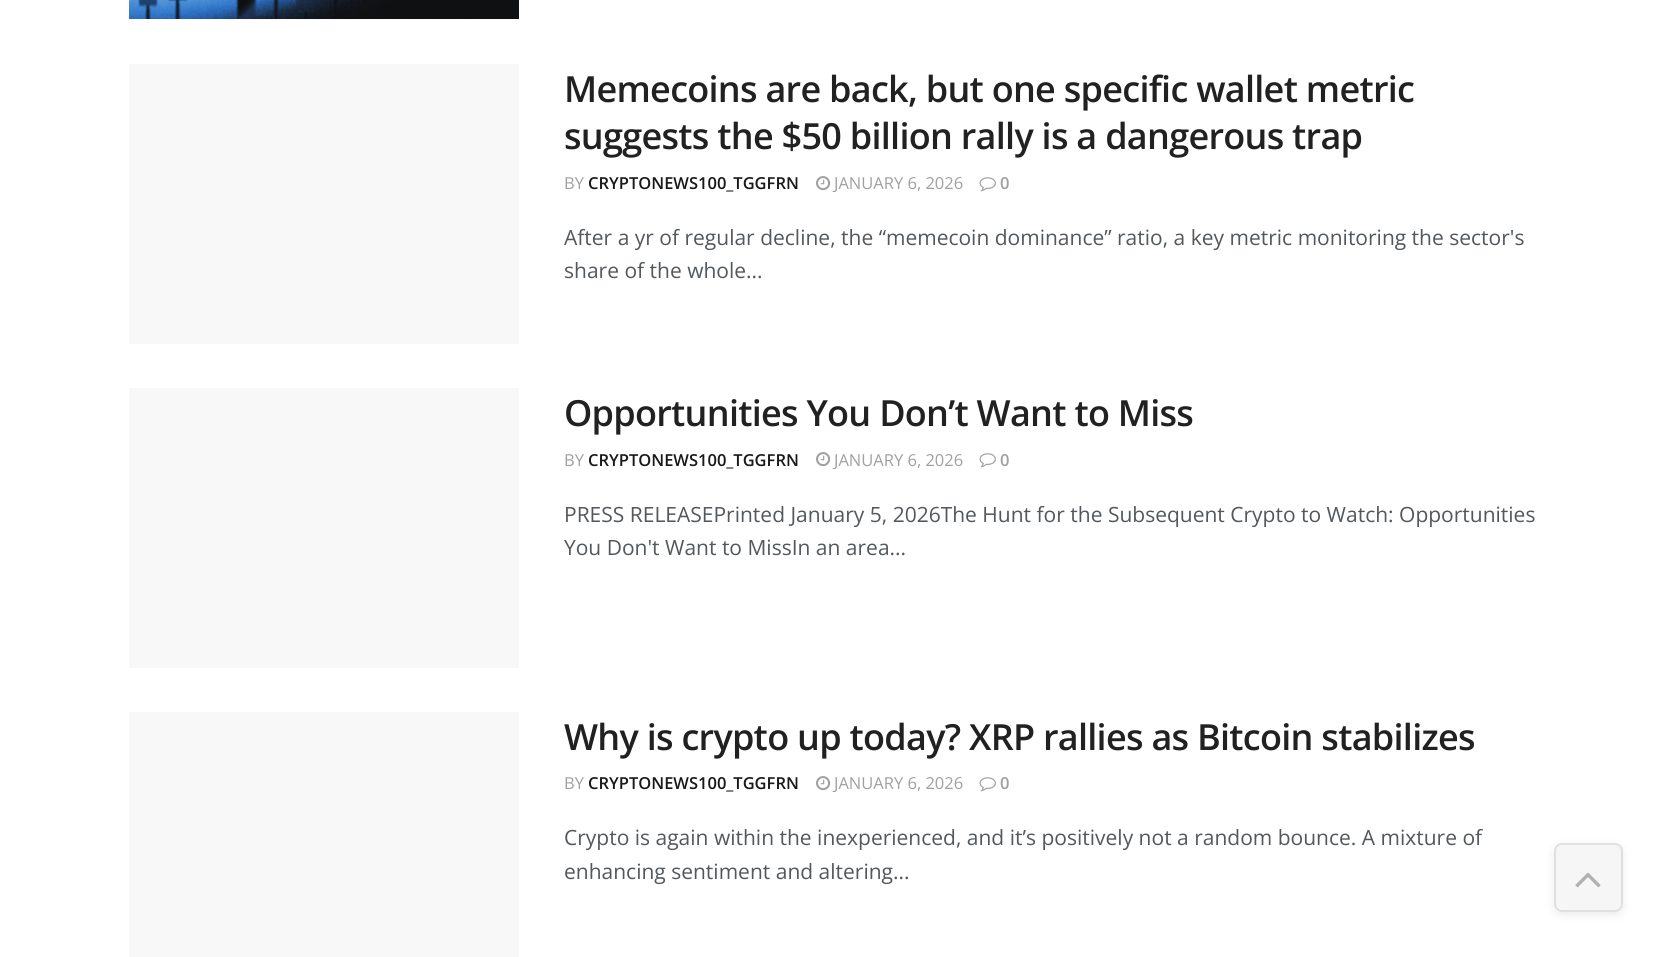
#include <cairo.h>
#include <math.h>
#include <stddef.h>


static void spaced_text(cairo_t *cr, double x, double y, const char *s, double letter, double word) {
    cairo_move_to(cr, x, y);
    while (*s) {
        char ch[5] = {0};
        int n = 0;
        do ch[n++] = *s++; while ((*s & 0xC0) == 0x80);
        cairo_show_text(cr, ch);
        cairo_rel_move_to(cr, letter + word * (*ch == ' '), 0);
    }
}

static void round_rect(cairo_t *cr, double x, double y, double w, double h, double r) {
    cairo_new_sub_path(cr);
    cairo_arc(cr, x + w - r, y + h - r, r, 0, M_PI / 2);
    cairo_arc(cr, x + r, y + h - r, r, M_PI / 2, M_PI);
    cairo_arc(cr, x + r, y + r, r, M_PI, 1.5 * M_PI);
    cairo_arc(cr, x + w - r, y + r, r, 1.5 * M_PI, 2 * M_PI);
    cairo_close_path(cr);
}

static void shadow(cairo_t *cr, double x, double y, double w, double h, double r, double blur, double alpha) {
    cairo_push_group_with_content(cr, CAIRO_CONTENT_ALPHA);
    cairo_set_operator(cr, CAIRO_OPERATOR_SOURCE);
    for (int i = 15; i >= -15 && fmin(w, h) + blur * i / 3 > 0; i -= 2) {
        double e = blur * i / 6;
        cairo_set_source_rgba(cr, 0, 0, 0, alpha * erfc((i - 1) / 8.5) / 2);
        round_rect(cr, x - e, y - e, w + 2 * e, h + 2 * e, fmax(0, fmin(r + e + blur * .6, fmin(w, h) / 2 + e)));
        cairo_fill(cr);
    }
    cairo_pattern_t *soft = cairo_pop_group(cr);
    cairo_mask(cr, soft);
    cairo_pattern_destroy(soft);
}

static void picture(cairo_t *cr, const char *path, double x, double y, double w, double h) {
    cairo_surface_t *image = cairo_image_surface_create_from_png(path);
    cairo_save(cr);
    cairo_set_source_surface(cr, image, x, y);
    cairo_rectangle(cr, x, y, w, h);
    cairo_fill(cr);
    cairo_restore(cr);
    cairo_surface_destroy(image);
}

int main(void) {
    cairo_surface_t *surface = cairo_image_surface_create(CAIRO_FORMAT_RGB24, 1668, 957);
    cairo_t *cr = cairo_create(surface);
    cairo_font_options_t *options = cairo_font_options_create();
    cairo_font_options_set_hint_metrics(options, CAIRO_HINT_METRICS_OFF);
    cairo_font_options_set_hint_style(options, CAIRO_HINT_STYLE_NONE);
    cairo_set_font_options(cr, options);
    cairo_set_miter_limit(cr, 4);
    cairo_set_source_rgb(cr, 1, 1, 1);
    cairo_paint(cr);
    cairo_set_source_rgb(cr, 0.969, 0.969, 0.969);
    cairo_rectangle(cr, 129, 19, 390, 1);
    cairo_fill(cr);
    picture(cr, "img1.png", 129, 0, 390, 19);
    cairo_rectangle(cr, 129, 64, 390, 280);
    cairo_fill(cr);
    cairo_select_font_face(cr, "Open Sans SemiBold", CAIRO_FONT_SLANT_NORMAL, CAIRO_FONT_WEIGHT_NORMAL);
    cairo_set_font_size(cr, 36);
    cairo_set_source_rgb(cr, 0.129, 0.129, 0.129);
    spaced_text(cr, 564, 102, "Memecoins are back, but one specific wallet metric", -0.72, 0);
    spaced_text(cr, 564, 149, "suggests the $50 billion rally is a dangerous trap", -0.72, 0);
    cairo_select_font_face(cr, "Open Sans", CAIRO_FONT_SLANT_NORMAL, CAIRO_FONT_WEIGHT_NORMAL);
    cairo_set_font_size(cr, 16.5);
    cairo_set_source_rgb(cr, 0.627, 0.627, 0.627);
    cairo_move_to(cr, 564, 189);
    cairo_show_text(cr, "BY");
    cairo_select_font_face(cr, "Open Sans SemiBold", CAIRO_FONT_SLANT_NORMAL, CAIRO_FONT_WEIGHT_NORMAL);
    cairo_set_source_rgb(cr, 0.098, 0.094, 0.094);
    cairo_move_to(cr, 588, 189);
    cairo_show_text(cr, "CRYPTONEWS100_TGGFRN");
    picture(cr, "img2.png", 816, 176, 15, 15);
    cairo_select_font_face(cr, "Open Sans", CAIRO_FONT_SLANT_NORMAL, CAIRO_FONT_WEIGHT_NORMAL);
    cairo_set_source_rgb(cr, 0.627, 0.627, 0.627);
    cairo_move_to(cr, 834, 189);
    cairo_show_text(cr, "JANUARY 6, 2026");
    picture(cr, "img3.png", 979, 177, 17, 15);
    cairo_select_font_face(cr, "Open Sans SemiBold", CAIRO_FONT_SLANT_NORMAL, CAIRO_FONT_WEIGHT_NORMAL);
    cairo_move_to(cr, 1000, 189);
    cairo_show_text(cr, "0");
    cairo_select_font_face(cr, "Open Sans", CAIRO_FONT_SLANT_NORMAL, CAIRO_FONT_WEIGHT_NORMAL);
    cairo_set_font_size(cr, 21);
    cairo_set_source_rgb(cr, 0.325, 0.345, 0.361);
    cairo_move_to(cr, 564, 245);
    cairo_show_text(cr, "After a yr of regular decline, the “memecoin dominance” ratio, a key metric monitoring the sector's");
    cairo_move_to(cr, 564, 278);
    cairo_show_text(cr, "share of the whole...");
    cairo_set_source_rgb(cr, 0.969, 0.969, 0.969);
    cairo_rectangle(cr, 129, 388, 390, 280);
    cairo_fill(cr);
    cairo_select_font_face(cr, "Open Sans SemiBold", CAIRO_FONT_SLANT_NORMAL, CAIRO_FONT_WEIGHT_NORMAL);
    cairo_set_font_size(cr, 36);
    cairo_set_source_rgb(cr, 0.129, 0.129, 0.129);
    spaced_text(cr, 564, 426, "Opportunities You Don’t Want to Miss", -0.72, 0);
    cairo_select_font_face(cr, "Open Sans", CAIRO_FONT_SLANT_NORMAL, CAIRO_FONT_WEIGHT_NORMAL);
    cairo_set_font_size(cr, 16.5);
    cairo_set_source_rgb(cr, 0.627, 0.627, 0.627);
    cairo_move_to(cr, 564, 466);
    cairo_show_text(cr, "BY");
    cairo_select_font_face(cr, "Open Sans SemiBold", CAIRO_FONT_SLANT_NORMAL, CAIRO_FONT_WEIGHT_NORMAL);
    cairo_set_source_rgb(cr, 0.098, 0.094, 0.094);
    cairo_move_to(cr, 588, 466);
    cairo_show_text(cr, "CRYPTONEWS100_TGGFRN");
    picture(cr, "img2.png", 816, 452, 15, 15);
    cairo_select_font_face(cr, "Open Sans", CAIRO_FONT_SLANT_NORMAL, CAIRO_FONT_WEIGHT_NORMAL);
    cairo_set_source_rgb(cr, 0.627, 0.627, 0.627);
    cairo_move_to(cr, 834, 466);
    cairo_show_text(cr, "JANUARY 6, 2026");
    picture(cr, "img3.png", 979, 453, 17, 15);
    cairo_select_font_face(cr, "Open Sans SemiBold", CAIRO_FONT_SLANT_NORMAL, CAIRO_FONT_WEIGHT_NORMAL);
    cairo_move_to(cr, 1000, 466);
    cairo_show_text(cr, "0");
    cairo_select_font_face(cr, "Open Sans", CAIRO_FONT_SLANT_NORMAL, CAIRO_FONT_WEIGHT_NORMAL);
    cairo_set_font_size(cr, 21);
    cairo_set_source_rgb(cr, 0.325, 0.345, 0.361);
    cairo_move_to(cr, 564, 522);
    cairo_show_text(cr, "PRESS RELEASEPrinted January 5, 2026The Hunt for the Subsequent Crypto to Watch: Opportunities");
    cairo_move_to(cr, 564, 555);
    cairo_show_text(cr, "You Don't Want to MissIn an area...");
    cairo_set_source_rgb(cr, 0.969, 0.969, 0.969);
    cairo_rectangle(cr, 129, 712, 390, 245);
    cairo_fill(cr);
    cairo_select_font_face(cr, "Open Sans SemiBold", CAIRO_FONT_SLANT_NORMAL, CAIRO_FONT_WEIGHT_NORMAL);
    cairo_set_font_size(cr, 36);
    cairo_set_source_rgb(cr, 0.129, 0.129, 0.129);
    spaced_text(cr, 564, 750, "Why is crypto up today? XRP rallies as Bitcoin stabilizes", -0.72, 0);
    cairo_select_font_face(cr, "Open Sans", CAIRO_FONT_SLANT_NORMAL, CAIRO_FONT_WEIGHT_NORMAL);
    cairo_set_font_size(cr, 16.5);
    cairo_set_source_rgb(cr, 0.627, 0.627, 0.627);
    cairo_move_to(cr, 564, 789);
    cairo_show_text(cr, "BY");
    cairo_select_font_face(cr, "Open Sans SemiBold", CAIRO_FONT_SLANT_NORMAL, CAIRO_FONT_WEIGHT_NORMAL);
    cairo_set_source_rgb(cr, 0.098, 0.094, 0.094);
    cairo_move_to(cr, 588, 789);
    cairo_show_text(cr, "CRYPTONEWS100_TGGFRN");
    picture(cr, "img2.png", 816, 776, 15, 15);
    cairo_select_font_face(cr, "Open Sans", CAIRO_FONT_SLANT_NORMAL, CAIRO_FONT_WEIGHT_NORMAL);
    cairo_set_source_rgb(cr, 0.627, 0.627, 0.627);
    cairo_move_to(cr, 834, 789);
    cairo_show_text(cr, "JANUARY 6, 2026");
    picture(cr, "img3.png", 979, 777, 17, 15);
    cairo_select_font_face(cr, "Open Sans SemiBold", CAIRO_FONT_SLANT_NORMAL, CAIRO_FONT_WEIGHT_NORMAL);
    cairo_move_to(cr, 1000, 789);
    cairo_show_text(cr, "0");
    cairo_select_font_face(cr, "Open Sans", CAIRO_FONT_SLANT_NORMAL, CAIRO_FONT_WEIGHT_NORMAL);
    cairo_set_font_size(cr, 21);
    cairo_set_source_rgb(cr, 0.325, 0.345, 0.361);
    cairo_move_to(cr, 564, 845);
    cairo_show_text(cr, "Crypto is again within the inexperienced, and it’s positively not a random bounce. A mixture of");
    cairo_move_to(cr, 564, 879);
    cairo_show_text(cr, "enhancing sentiment and altering...");
    cairo_save(cr);
    cairo_set_fill_rule(cr, CAIRO_FILL_RULE_EVEN_ODD);
    cairo_new_path(cr);
    cairo_move_to(cr, 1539, 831);
    cairo_line_to(cr, 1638, 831);
    cairo_line_to(cr, 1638, 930);
    cairo_line_to(cr, 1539, 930);
    cairo_close_path(cr);
    cairo_move_to(cr, 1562, 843);
    cairo_line_to(cr, 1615, 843);
    cairo_curve_to(cr, 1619.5, 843, 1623, 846.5, 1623, 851);
    cairo_line_to(cr, 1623, 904);
    cairo_curve_to(cr, 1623, 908.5, 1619.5, 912, 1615, 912);
    cairo_line_to(cr, 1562, 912);
    cairo_curve_to(cr, 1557.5, 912, 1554, 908.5, 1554, 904);
    cairo_line_to(cr, 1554, 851);
    cairo_curve_to(cr, 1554, 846.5, 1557.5, 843, 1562, 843);
    cairo_close_path(cr);
    cairo_clip(cr);
    cairo_set_source_rgb(cr, 0.2, 0.2, 0.2);
    shadow(cr, 1554, 846, 69, 69, 8, 4.5, 0.1);
    cairo_restore(cr);
    cairo_set_source_rgba(cr, 0.765, 0.765, 0.765, 0.15);
    round_rect(cr, 1554, 843, 69, 69, 8);
    cairo_fill(cr);
    round_rect(cr, 1555, 844, 67, 67, 7);
    cairo_set_source_rgba(cr, 0.2, 0.2, 0.2, 0.11);
    cairo_stroke(cr);
    picture(cr, "img4.png", 1575, 872, 26, 16);
    cairo_surface_write_to_png(surface, "page.png");
    cairo_font_options_destroy(options);
    cairo_destroy(cr);
    cairo_surface_destroy(surface);
    return 0;
}
